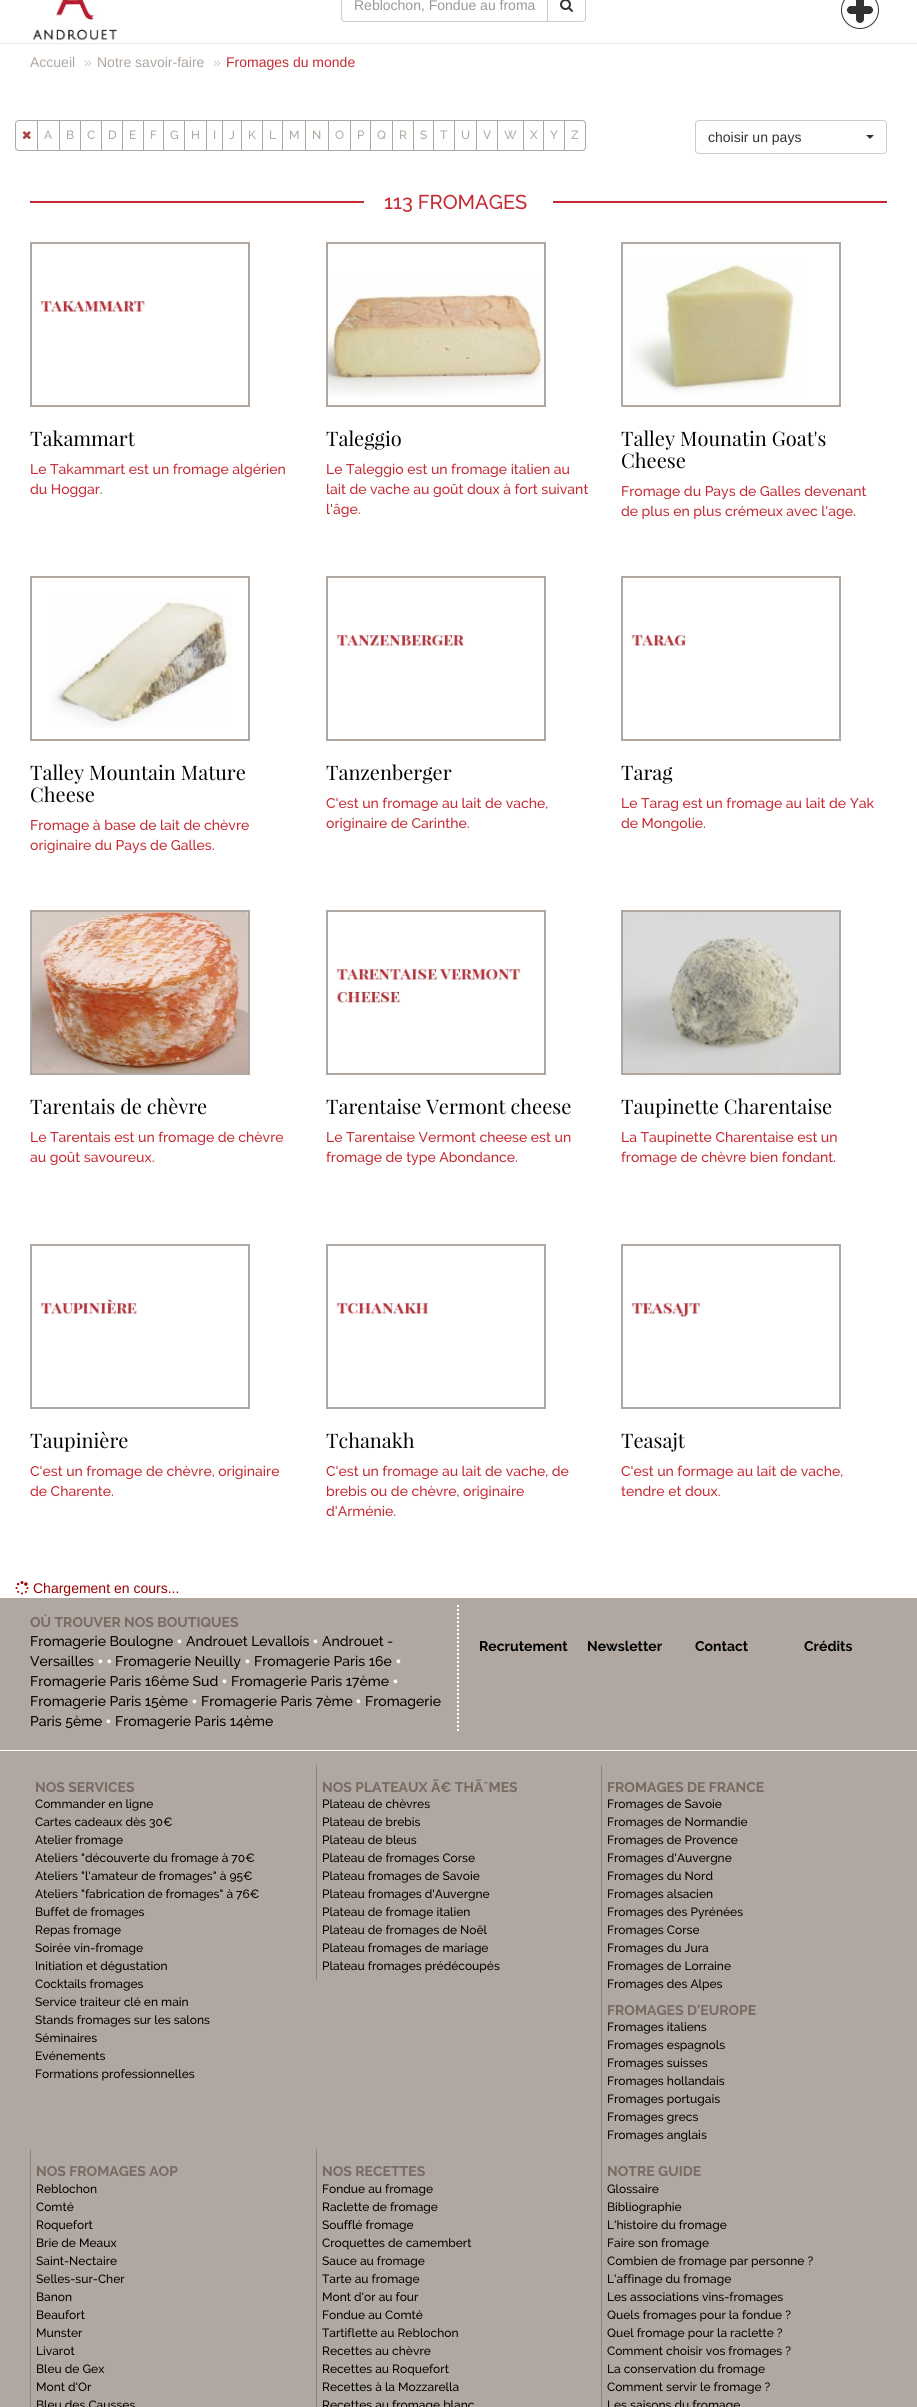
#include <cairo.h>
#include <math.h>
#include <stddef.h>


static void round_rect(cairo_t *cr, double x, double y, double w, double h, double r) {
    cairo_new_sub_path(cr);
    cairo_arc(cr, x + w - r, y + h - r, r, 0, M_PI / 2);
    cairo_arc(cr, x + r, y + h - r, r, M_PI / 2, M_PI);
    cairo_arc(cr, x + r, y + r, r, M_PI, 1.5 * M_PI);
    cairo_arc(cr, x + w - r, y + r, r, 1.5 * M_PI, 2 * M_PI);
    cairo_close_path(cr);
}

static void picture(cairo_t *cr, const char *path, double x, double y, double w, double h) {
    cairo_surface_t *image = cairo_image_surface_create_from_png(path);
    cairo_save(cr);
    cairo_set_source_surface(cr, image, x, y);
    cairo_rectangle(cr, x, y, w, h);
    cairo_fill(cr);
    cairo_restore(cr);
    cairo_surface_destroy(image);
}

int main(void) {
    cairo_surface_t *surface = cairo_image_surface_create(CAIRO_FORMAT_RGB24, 917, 2407);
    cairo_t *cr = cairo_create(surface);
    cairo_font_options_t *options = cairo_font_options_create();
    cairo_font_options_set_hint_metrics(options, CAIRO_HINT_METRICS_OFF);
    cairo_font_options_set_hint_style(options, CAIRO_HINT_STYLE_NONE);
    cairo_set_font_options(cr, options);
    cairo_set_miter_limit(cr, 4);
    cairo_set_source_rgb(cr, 1, 1, 1);
    cairo_paint(cr);
    cairo_set_source_rgb(cr, 0.906, 0.906, 0.906);
    cairo_rectangle(cr, 0, 43, 917, 1);
    cairo_fill(cr);
    picture(cr, "img1.png", 32, 0, 86, 41);
    cairo_new_path(cr);
    cairo_move_to(cr, 345, -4.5);
    cairo_line_to(cr, 547.5, -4.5);
    cairo_line_to(cr, 547.5, 21.5);
    cairo_line_to(cr, 345, 21.5);
    cairo_curve_to(cr, 343, 21.5, 341.5, 20, 341.5, 18);
    cairo_line_to(cr, 341.5, -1);
    cairo_curve_to(cr, 341.5, -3, 343, -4.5, 345, -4.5);
    cairo_close_path(cr);
    cairo_set_source_rgb(cr, 0.8, 0.8, 0.8);
    cairo_set_line_width(cr, 1);
    cairo_stroke(cr);
    cairo_select_font_face(cr, "Liberation Sans", CAIRO_FONT_SLANT_NORMAL, CAIRO_FONT_WEIGHT_NORMAL);
    cairo_set_font_size(cr, 14);
    cairo_set_source_rgb(cr, 0.6, 0.6, 0.6);
    cairo_move_to(cr, 354, 10);
    cairo_show_text(cr, "Reblochon, Fondue au froma");
    cairo_set_source_rgb(cr, 1, 1, 1);
    cairo_new_path(cr);
    cairo_move_to(cr, 547.5, -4.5);
    cairo_line_to(cr, 582, -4.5);
    cairo_curve_to(cr, 584, -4.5, 585.5, -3, 585.5, -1);
    cairo_line_to(cr, 585.5, 18);
    cairo_curve_to(cr, 585.5, 20, 584, 21.5, 582, 21.5);
    cairo_line_to(cr, 547.5, 21.5);
    cairo_close_path(cr);
    cairo_fill_preserve(cr);
    cairo_set_source_rgb(cr, 0.8, 0.8, 0.8);
    cairo_stroke(cr);
    picture(cr, "img2.png", 560, 0, 13, 12);
    cairo_arc(cr, 860, 10, 18.5, 0, 2 * M_PI);
    cairo_set_source_rgb(cr, 0.2, 0.2, 0.2);
    cairo_stroke(cr);
    round_rect(cr, 847, 6, 26, 8, 4);
    cairo_fill(cr);
    round_rect(cr, 856, -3, 8, 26, 4);
    cairo_fill(cr);
    cairo_set_source_rgb(cr, 0.686, 0.655, 0.627);
    cairo_move_to(cr, 30, 67);
    cairo_show_text(cr, "Accueil");
    cairo_set_source_rgb(cr, 0.8, 0.8, 0.8);
    cairo_move_to(cr, 84, 67);
    cairo_show_text(cr, "»");
    cairo_set_source_rgb(cr, 0.686, 0.655, 0.627);
    cairo_move_to(cr, 97, 67);
    cairo_show_text(cr, "Notre savoir-faire");
    cairo_set_source_rgb(cr, 0.8, 0.8, 0.8);
    cairo_move_to(cr, 213, 67);
    cairo_show_text(cr, "»");
    cairo_set_source_rgb(cr, 0.776, 0.165, 0.196);
    cairo_move_to(cr, 226, 67);
    cairo_show_text(cr, "Fromages du monde");
    cairo_new_path(cr);
    cairo_move_to(cr, 19, 120.5);
    cairo_line_to(cr, 37.5, 120.5);
    cairo_line_to(cr, 37.5, 150.5);
    cairo_line_to(cr, 19, 150.5);
    cairo_curve_to(cr, 17, 150.5, 15.5, 149, 15.5, 147);
    cairo_line_to(cr, 15.5, 124);
    cairo_curve_to(cr, 15.5, 122, 17, 120.5, 19, 120.5);
    cairo_close_path(cr);
    cairo_set_source_rgb(cr, 0.686, 0.655, 0.627);
    cairo_stroke(cr);
    picture(cr, "img3.png", 22, 131, 9, 9);
    cairo_rectangle(cr, 37.5, 120.5, 22, 30);
    cairo_stroke(cr);
    cairo_select_font_face(cr, "Raleway Medium", CAIRO_FONT_SLANT_NORMAL, CAIRO_FONT_WEIGHT_NORMAL);
    cairo_set_font_size(cr, 12);
    cairo_move_to(cr, 44, 139);
    cairo_show_text(cr, "A");
    cairo_rectangle(cr, 59.5, 120.5, 21, 30);
    cairo_stroke(cr);
    cairo_move_to(cr, 66, 139);
    cairo_show_text(cr, "B");
    cairo_rectangle(cr, 80.5, 120.5, 21, 30);
    cairo_stroke(cr);
    cairo_move_to(cr, 87, 139);
    cairo_show_text(cr, "C");
    cairo_rectangle(cr, 101.5, 120.5, 21, 30);
    cairo_stroke(cr);
    cairo_move_to(cr, 108, 139);
    cairo_show_text(cr, "D");
    cairo_rectangle(cr, 122.5, 120.5, 21, 30);
    cairo_stroke(cr);
    cairo_move_to(cr, 129, 139);
    cairo_show_text(cr, "E");
    cairo_rectangle(cr, 143.5, 120.5, 20, 30);
    cairo_stroke(cr);
    cairo_move_to(cr, 150, 139);
    cairo_show_text(cr, "F");
    cairo_rectangle(cr, 163.5, 120.5, 21, 30);
    cairo_stroke(cr);
    cairo_move_to(cr, 170, 139);
    cairo_show_text(cr, "G");
    cairo_rectangle(cr, 184.5, 120.5, 22, 30);
    cairo_stroke(cr);
    cairo_move_to(cr, 191, 139);
    cairo_show_text(cr, "H");
    cairo_rectangle(cr, 206.5, 120.5, 16, 30);
    cairo_stroke(cr);
    cairo_move_to(cr, 213, 139);
    cairo_show_text(cr, "I");
    cairo_rectangle(cr, 222.5, 120.5, 19, 30);
    cairo_stroke(cr);
    cairo_move_to(cr, 229, 139);
    cairo_show_text(cr, "J");
    cairo_rectangle(cr, 241.5, 120.5, 21, 30);
    cairo_stroke(cr);
    cairo_move_to(cr, 248, 139);
    cairo_show_text(cr, "K");
    cairo_rectangle(cr, 262.5, 120.5, 20, 30);
    cairo_stroke(cr);
    cairo_move_to(cr, 269, 139);
    cairo_show_text(cr, "L");
    cairo_rectangle(cr, 282.5, 120.5, 23, 30);
    cairo_stroke(cr);
    cairo_move_to(cr, 289, 139);
    cairo_show_text(cr, "M");
    cairo_rectangle(cr, 305.5, 120.5, 23, 30);
    cairo_stroke(cr);
    cairo_move_to(cr, 312, 139);
    cairo_show_text(cr, "N");
    cairo_rectangle(cr, 328.5, 120.5, 22, 30);
    cairo_stroke(cr);
    cairo_move_to(cr, 335, 139);
    cairo_show_text(cr, "O");
    cairo_rectangle(cr, 350.5, 120.5, 20, 30);
    cairo_stroke(cr);
    cairo_move_to(cr, 357, 139);
    cairo_show_text(cr, "P");
    cairo_rectangle(cr, 370.5, 120.5, 22, 30);
    cairo_stroke(cr);
    cairo_move_to(cr, 377, 139);
    cairo_show_text(cr, "Q");
    cairo_rectangle(cr, 392.5, 120.5, 21, 30);
    cairo_stroke(cr);
    cairo_move_to(cr, 399, 139);
    cairo_show_text(cr, "R");
    cairo_rectangle(cr, 413.5, 120.5, 20, 30);
    cairo_stroke(cr);
    cairo_move_to(cr, 420, 139);
    cairo_show_text(cr, "S");
    cairo_rectangle(cr, 433.5, 120.5, 21, 30);
    cairo_stroke(cr);
    cairo_move_to(cr, 440, 139);
    cairo_show_text(cr, "T");
    cairo_rectangle(cr, 454.5, 120.5, 22, 30);
    cairo_stroke(cr);
    cairo_move_to(cr, 461, 139);
    cairo_show_text(cr, "U");
    cairo_rectangle(cr, 476.5, 120.5, 21, 30);
    cairo_stroke(cr);
    cairo_move_to(cr, 483, 139);
    cairo_show_text(cr, "V");
    cairo_rectangle(cr, 497.5, 120.5, 26, 30);
    cairo_stroke(cr);
    cairo_move_to(cr, 504, 139);
    cairo_show_text(cr, "W");
    cairo_rectangle(cr, 523.5, 120.5, 20, 30);
    cairo_stroke(cr);
    cairo_move_to(cr, 530, 139);
    cairo_show_text(cr, "X");
    cairo_rectangle(cr, 543.5, 120.5, 21, 30);
    cairo_stroke(cr);
    cairo_move_to(cr, 550, 139);
    cairo_show_text(cr, "Y");
    cairo_set_source_rgb(cr, 1, 1, 1);
    cairo_new_path(cr);
    cairo_move_to(cr, 564.5, 120.5);
    cairo_line_to(cr, 582, 120.5);
    cairo_curve_to(cr, 584, 120.5, 585.5, 122, 585.5, 124);
    cairo_line_to(cr, 585.5, 147);
    cairo_curve_to(cr, 585.5, 149, 584, 150.5, 582, 150.5);
    cairo_line_to(cr, 564.5, 150.5);
    cairo_close_path(cr);
    cairo_fill_preserve(cr);
    cairo_set_source_rgb(cr, 0.686, 0.655, 0.627);
    cairo_stroke(cr);
    cairo_move_to(cr, 571, 139);
    cairo_show_text(cr, "Z");
    round_rect(cr, 695.5, 120.5, 191, 33, 3.5);
    cairo_set_source_rgb(cr, 0.8, 0.8, 0.8);
    cairo_stroke(cr);
    cairo_select_font_face(cr, "Liberation Sans", CAIRO_FONT_SLANT_NORMAL, CAIRO_FONT_WEIGHT_NORMAL);
    cairo_set_font_size(cr, 14);
    cairo_set_source_rgb(cr, 0.2, 0.2, 0.2);
    cairo_move_to(cr, 708, 142);
    cairo_show_text(cr, "choisir un pays");
    cairo_new_path(cr);
    cairo_move_to(cr, 866, 135);
    cairo_line_to(cr, 874, 135);
    cairo_line_to(cr, 870, 139);
    cairo_close_path(cr);
    cairo_fill(cr);
    cairo_set_source_rgb(cr, 0.776, 0.165, 0.196);
    cairo_rectangle(cr, 30, 201, 334, 2);
    cairo_fill(cr);
    cairo_select_font_face(cr, "Raleway Medium", CAIRO_FONT_SLANT_NORMAL, CAIRO_FONT_WEIGHT_NORMAL);
    cairo_set_font_size(cr, 20);
    cairo_move_to(cr, 384, 209);
    cairo_show_text(cr, "113 FROMAGES");
    cairo_rectangle(cr, 553, 201, 334, 2);
    cairo_fill(cr);
    cairo_rectangle(cr, 31, 243, 218, 163);
    cairo_set_source_rgb(cr, 0.686, 0.655, 0.627);
    cairo_set_line_width(cr, 2);
    cairo_stroke(cr);
    picture(cr, "img4.png", 40, 300, 106, 12);
    cairo_select_font_face(cr, "Playfair Display", CAIRO_FONT_SLANT_NORMAL, CAIRO_FONT_WEIGHT_NORMAL);
    cairo_set_source_rgb(cr, 0, 0, 0);
    cairo_move_to(cr, 30, 446);
    cairo_show_text(cr, "Takammart");
    cairo_select_font_face(cr, "Raleway Medium", CAIRO_FONT_SLANT_NORMAL, CAIRO_FONT_WEIGHT_NORMAL);
    cairo_set_font_size(cr, 14);
    cairo_set_source_rgb(cr, 0.776, 0.165, 0.196);
    cairo_move_to(cr, 30, 474);
    cairo_show_text(cr, "Le Takammart est un fromage algérien");
    cairo_move_to(cr, 30, 494);
    cairo_show_text(cr, "du Hoggar.");
    cairo_rectangle(cr, 327, 243, 218, 163);
    cairo_set_source_rgb(cr, 0.686, 0.655, 0.627);
    cairo_stroke(cr);
    picture(cr, "img5.png", 328, 279, 216, 118);
    cairo_select_font_face(cr, "Playfair Display", CAIRO_FONT_SLANT_NORMAL, CAIRO_FONT_WEIGHT_NORMAL);
    cairo_set_font_size(cr, 20);
    cairo_set_source_rgb(cr, 0, 0, 0);
    cairo_move_to(cr, 326, 446);
    cairo_show_text(cr, "Taleggio");
    cairo_select_font_face(cr, "Raleway Medium", CAIRO_FONT_SLANT_NORMAL, CAIRO_FONT_WEIGHT_NORMAL);
    cairo_set_font_size(cr, 14);
    cairo_set_source_rgb(cr, 0.776, 0.165, 0.196);
    cairo_move_to(cr, 326, 474);
    cairo_show_text(cr, "Le Taleggio est un fromage italien au");
    cairo_move_to(cr, 326, 494);
    cairo_show_text(cr, "lait de vache au goût doux à fort suivant");
    cairo_move_to(cr, 326, 514);
    cairo_show_text(cr, "l'âge.");
    cairo_rectangle(cr, 622, 243, 218, 163);
    cairo_set_source_rgb(cr, 0.686, 0.655, 0.627);
    cairo_stroke(cr);
    picture(cr, "img6.png", 630, 262, 176, 132);
    cairo_select_font_face(cr, "Playfair Display", CAIRO_FONT_SLANT_NORMAL, CAIRO_FONT_WEIGHT_NORMAL);
    cairo_set_font_size(cr, 20);
    cairo_set_source_rgb(cr, 0, 0, 0);
    cairo_move_to(cr, 621, 446);
    cairo_show_text(cr, "Talley Mounatin Goat's");
    cairo_move_to(cr, 621, 468);
    cairo_show_text(cr, "Cheese");
    cairo_select_font_face(cr, "Raleway Medium", CAIRO_FONT_SLANT_NORMAL, CAIRO_FONT_WEIGHT_NORMAL);
    cairo_set_font_size(cr, 14);
    cairo_set_source_rgb(cr, 0.776, 0.165, 0.196);
    cairo_move_to(cr, 621, 496);
    cairo_show_text(cr, "Fromage du Pays de Galles devenant");
    cairo_move_to(cr, 621, 516);
    cairo_show_text(cr, "de plus en plus crémeux avec l'age.");
    cairo_rectangle(cr, 31, 577, 218, 163);
    cairo_set_source_rgb(cr, 0.686, 0.655, 0.627);
    cairo_stroke(cr);
    picture(cr, "img7.png", 49, 596, 183, 132);
    cairo_select_font_face(cr, "Playfair Display", CAIRO_FONT_SLANT_NORMAL, CAIRO_FONT_WEIGHT_NORMAL);
    cairo_set_font_size(cr, 20);
    cairo_set_source_rgb(cr, 0, 0, 0);
    cairo_move_to(cr, 30, 780);
    cairo_show_text(cr, "Talley Mountain Mature");
    cairo_move_to(cr, 30, 802);
    cairo_show_text(cr, "Cheese");
    cairo_select_font_face(cr, "Raleway Medium", CAIRO_FONT_SLANT_NORMAL, CAIRO_FONT_WEIGHT_NORMAL);
    cairo_set_font_size(cr, 14);
    cairo_set_source_rgb(cr, 0.776, 0.165, 0.196);
    cairo_move_to(cr, 30, 830);
    cairo_show_text(cr, "Fromage à base de lait de chèvre");
    cairo_move_to(cr, 30, 850);
    cairo_show_text(cr, "originaire du Pays de Galles.");
    cairo_rectangle(cr, 327, 577, 218, 163);
    cairo_set_source_rgb(cr, 0.686, 0.655, 0.627);
    cairo_stroke(cr);
    picture(cr, "img8.png", 336, 634, 129, 12);
    cairo_select_font_face(cr, "Playfair Display", CAIRO_FONT_SLANT_NORMAL, CAIRO_FONT_WEIGHT_NORMAL);
    cairo_set_font_size(cr, 20);
    cairo_set_source_rgb(cr, 0, 0, 0);
    cairo_move_to(cr, 326, 780);
    cairo_show_text(cr, "Tanzenberger");
    cairo_select_font_face(cr, "Raleway Medium", CAIRO_FONT_SLANT_NORMAL, CAIRO_FONT_WEIGHT_NORMAL);
    cairo_set_font_size(cr, 14);
    cairo_set_source_rgb(cr, 0.776, 0.165, 0.196);
    cairo_move_to(cr, 326, 808);
    cairo_show_text(cr, "C'est un fromage au lait de vache,");
    cairo_move_to(cr, 326, 828);
    cairo_show_text(cr, "originaire de Carinthe.");
    cairo_rectangle(cr, 622, 577, 218, 163);
    cairo_set_source_rgb(cr, 0.686, 0.655, 0.627);
    cairo_stroke(cr);
    picture(cr, "img9.png", 631, 634, 55, 12);
    cairo_select_font_face(cr, "Playfair Display", CAIRO_FONT_SLANT_NORMAL, CAIRO_FONT_WEIGHT_NORMAL);
    cairo_set_font_size(cr, 20);
    cairo_set_source_rgb(cr, 0, 0, 0);
    cairo_move_to(cr, 621, 780);
    cairo_show_text(cr, "Tarag");
    cairo_select_font_face(cr, "Raleway Medium", CAIRO_FONT_SLANT_NORMAL, CAIRO_FONT_WEIGHT_NORMAL);
    cairo_set_font_size(cr, 14);
    cairo_set_source_rgb(cr, 0.776, 0.165, 0.196);
    cairo_move_to(cr, 621, 808);
    cairo_show_text(cr, "Le Tarag est un fromage au lait de Yak");
    cairo_move_to(cr, 621, 828);
    cairo_show_text(cr, "de Mongolie.");
    cairo_rectangle(cr, 31, 911, 218, 163);
    cairo_set_source_rgb(cr, 0.686, 0.655, 0.627);
    cairo_stroke(cr);
    picture(cr, "img10.png", 32, 912, 216, 161);
    cairo_select_font_face(cr, "Playfair Display", CAIRO_FONT_SLANT_NORMAL, CAIRO_FONT_WEIGHT_NORMAL);
    cairo_set_font_size(cr, 20);
    cairo_set_source_rgb(cr, 0, 0, 0);
    cairo_move_to(cr, 30, 1114);
    cairo_show_text(cr, "Tarentais de chèvre");
    cairo_select_font_face(cr, "Raleway Medium", CAIRO_FONT_SLANT_NORMAL, CAIRO_FONT_WEIGHT_NORMAL);
    cairo_set_font_size(cr, 14);
    cairo_set_source_rgb(cr, 0.776, 0.165, 0.196);
    cairo_move_to(cr, 30, 1142);
    cairo_show_text(cr, "Le Tarentais est un fromage de chèvre");
    cairo_move_to(cr, 30, 1162);
    cairo_show_text(cr, "au goût savoureux.");
    cairo_rectangle(cr, 327, 911, 218, 163);
    cairo_set_source_rgb(cr, 0.686, 0.655, 0.627);
    cairo_stroke(cr);
    picture(cr, "img11.png", 336, 968, 185, 36);
    cairo_select_font_face(cr, "Playfair Display", CAIRO_FONT_SLANT_NORMAL, CAIRO_FONT_WEIGHT_NORMAL);
    cairo_set_font_size(cr, 20);
    cairo_set_source_rgb(cr, 0, 0, 0);
    cairo_move_to(cr, 326, 1114);
    cairo_show_text(cr, "Tarentaise Vermont cheese");
    cairo_select_font_face(cr, "Raleway Medium", CAIRO_FONT_SLANT_NORMAL, CAIRO_FONT_WEIGHT_NORMAL);
    cairo_set_font_size(cr, 14);
    cairo_set_source_rgb(cr, 0.776, 0.165, 0.196);
    cairo_move_to(cr, 326, 1142);
    cairo_show_text(cr, "Le Tarentaise Vermont cheese est un");
    cairo_move_to(cr, 326, 1162);
    cairo_show_text(cr, "fromage de type Abondance.");
    cairo_rectangle(cr, 622, 911, 218, 163);
    cairo_set_source_rgb(cr, 0.686, 0.655, 0.627);
    cairo_stroke(cr);
    picture(cr, "img12.png", 623, 912, 216, 161);
    cairo_select_font_face(cr, "Playfair Display", CAIRO_FONT_SLANT_NORMAL, CAIRO_FONT_WEIGHT_NORMAL);
    cairo_set_font_size(cr, 20);
    cairo_set_source_rgb(cr, 0, 0, 0);
    cairo_move_to(cr, 621, 1114);
    cairo_show_text(cr, "Taupinette Charentaise");
    cairo_select_font_face(cr, "Raleway Medium", CAIRO_FONT_SLANT_NORMAL, CAIRO_FONT_WEIGHT_NORMAL);
    cairo_set_font_size(cr, 14);
    cairo_set_source_rgb(cr, 0.776, 0.165, 0.196);
    cairo_move_to(cr, 621, 1142);
    cairo_show_text(cr, "La Taupinette Charentaise est un");
    cairo_move_to(cr, 621, 1162);
    cairo_show_text(cr, "fromage de chèvre bien fondant.");
    cairo_rectangle(cr, 31, 1245, 218, 163);
    cairo_set_source_rgb(cr, 0.686, 0.655, 0.627);
    cairo_stroke(cr);
    picture(cr, "img13.png", 40, 1299, 97, 15);
    cairo_select_font_face(cr, "Playfair Display", CAIRO_FONT_SLANT_NORMAL, CAIRO_FONT_WEIGHT_NORMAL);
    cairo_set_font_size(cr, 20);
    cairo_set_source_rgb(cr, 0, 0, 0);
    cairo_move_to(cr, 30, 1448);
    cairo_show_text(cr, "Taupinière");
    cairo_select_font_face(cr, "Raleway Medium", CAIRO_FONT_SLANT_NORMAL, CAIRO_FONT_WEIGHT_NORMAL);
    cairo_set_font_size(cr, 14);
    cairo_set_source_rgb(cr, 0.776, 0.165, 0.196);
    cairo_move_to(cr, 30, 1476);
    cairo_show_text(cr, "C'est un fromage de chèvre, originaire");
    cairo_move_to(cr, 30, 1496);
    cairo_show_text(cr, "de Charente.");
    cairo_rectangle(cr, 327, 1245, 218, 163);
    cairo_set_source_rgb(cr, 0.686, 0.655, 0.627);
    cairo_stroke(cr);
    picture(cr, "img14.png", 336, 1302, 92, 12);
    cairo_select_font_face(cr, "Playfair Display", CAIRO_FONT_SLANT_NORMAL, CAIRO_FONT_WEIGHT_NORMAL);
    cairo_set_font_size(cr, 20);
    cairo_set_source_rgb(cr, 0, 0, 0);
    cairo_move_to(cr, 326, 1448);
    cairo_show_text(cr, "Tchanakh");
    cairo_select_font_face(cr, "Raleway Medium", CAIRO_FONT_SLANT_NORMAL, CAIRO_FONT_WEIGHT_NORMAL);
    cairo_set_font_size(cr, 14);
    cairo_set_source_rgb(cr, 0.776, 0.165, 0.196);
    cairo_move_to(cr, 326, 1476);
    cairo_show_text(cr, "C'est un fromage au lait de vache, de");
    cairo_move_to(cr, 326, 1496);
    cairo_show_text(cr, "brebis ou de chèvre, originaire");
    cairo_move_to(cr, 326, 1516);
    cairo_show_text(cr, "d'Arménie.");
    cairo_rectangle(cr, 622, 1245, 218, 163);
    cairo_set_source_rgb(cr, 0.686, 0.655, 0.627);
    cairo_stroke(cr);
    picture(cr, "img15.png", 631, 1302, 70, 16);
    cairo_select_font_face(cr, "Playfair Display", CAIRO_FONT_SLANT_NORMAL, CAIRO_FONT_WEIGHT_NORMAL);
    cairo_set_font_size(cr, 20);
    cairo_set_source_rgb(cr, 0, 0, 0);
    cairo_move_to(cr, 621, 1448);
    cairo_show_text(cr, "Teasajt");
    cairo_select_font_face(cr, "Raleway Medium", CAIRO_FONT_SLANT_NORMAL, CAIRO_FONT_WEIGHT_NORMAL);
    cairo_set_font_size(cr, 14);
    cairo_set_source_rgb(cr, 0.776, 0.165, 0.196);
    cairo_move_to(cr, 621, 1476);
    cairo_show_text(cr, "C'est un formage au lait de vache,");
    cairo_move_to(cr, 621, 1496);
    cairo_show_text(cr, "tendre et doux.");
    picture(cr, "img16.png", 15, 1581, 14, 14);
    cairo_select_font_face(cr, "Liberation Sans", CAIRO_FONT_SLANT_NORMAL, CAIRO_FONT_WEIGHT_NORMAL);
    cairo_set_source_rgb(cr, 0.6, 0, 0);
    cairo_move_to(cr, 33, 1593);
    cairo_show_text(cr, "Chargement en cours...");
    cairo_set_source_rgb(cr, 0.686, 0.655, 0.627);
    cairo_rectangle(cr, 0, 1598, 917, 809);
    cairo_fill(cr);
    cairo_new_path(cr);
    cairo_move_to(cr, 458, 1605);
    cairo_line_to(cr, 458, 1731);
    cairo_set_source_rgb(cr, 1, 1, 1);
    cairo_set_dash(cr, (double[]){2, 2}, 2, 0);
    cairo_stroke(cr);
    cairo_select_font_face(cr, "Raleway", CAIRO_FONT_SLANT_NORMAL, CAIRO_FONT_WEIGHT_BOLD);
    cairo_set_source_rgb(cr, 0.463, 0.416, 0.388);
    cairo_move_to(cr, 30, 1627);
    cairo_show_text(cr, "OÙ TROUVER NOS BOUTIQUES");
    cairo_select_font_face(cr, "Raleway Medium", CAIRO_FONT_SLANT_NORMAL, CAIRO_FONT_WEIGHT_NORMAL);
    cairo_set_source_rgb(cr, 0, 0, 0);
    cairo_move_to(cr, 30, 1646);
    cairo_show_text(cr, "Fromagerie Boulogne");
    cairo_select_font_face(cr, "Liberation Sans", CAIRO_FONT_SLANT_NORMAL, CAIRO_FONT_WEIGHT_NORMAL);
    cairo_set_source_rgb(cr, 1, 1, 1);
    cairo_move_to(cr, 177, 1646);
    cairo_show_text(cr, "•");
    cairo_select_font_face(cr, "Raleway Medium", CAIRO_FONT_SLANT_NORMAL, CAIRO_FONT_WEIGHT_NORMAL);
    cairo_set_source_rgb(cr, 0, 0, 0);
    cairo_move_to(cr, 186, 1646);
    cairo_show_text(cr, "Androuet Levallois");
    cairo_select_font_face(cr, "Liberation Sans", CAIRO_FONT_SLANT_NORMAL, CAIRO_FONT_WEIGHT_NORMAL);
    cairo_set_source_rgb(cr, 1, 1, 1);
    cairo_move_to(cr, 313, 1646);
    cairo_show_text(cr, "•");
    cairo_select_font_face(cr, "Raleway Medium", CAIRO_FONT_SLANT_NORMAL, CAIRO_FONT_WEIGHT_NORMAL);
    cairo_set_source_rgb(cr, 0, 0, 0);
    cairo_move_to(cr, 322, 1646);
    cairo_show_text(cr, "Androuet -");
    cairo_move_to(cr, 30, 1666);
    cairo_show_text(cr, "Versailles");
    cairo_select_font_face(cr, "Liberation Sans", CAIRO_FONT_SLANT_NORMAL, CAIRO_FONT_WEIGHT_NORMAL);
    cairo_set_source_rgb(cr, 1, 1, 1);
    cairo_move_to(cr, 98, 1666);
    cairo_show_text(cr, "• •");
    cairo_select_font_face(cr, "Raleway Medium", CAIRO_FONT_SLANT_NORMAL, CAIRO_FONT_WEIGHT_NORMAL);
    cairo_set_source_rgb(cr, 0, 0, 0);
    cairo_move_to(cr, 115, 1666);
    cairo_show_text(cr, "Fromagerie Neuilly");
    cairo_select_font_face(cr, "Liberation Sans", CAIRO_FONT_SLANT_NORMAL, CAIRO_FONT_WEIGHT_NORMAL);
    cairo_set_source_rgb(cr, 1, 1, 1);
    cairo_move_to(cr, 245, 1666);
    cairo_show_text(cr, "•");
    cairo_select_font_face(cr, "Raleway Medium", CAIRO_FONT_SLANT_NORMAL, CAIRO_FONT_WEIGHT_NORMAL);
    cairo_set_source_rgb(cr, 0, 0, 0);
    cairo_move_to(cr, 254, 1666);
    cairo_show_text(cr, "Fromagerie Paris 16e");
    cairo_select_font_face(cr, "Liberation Sans", CAIRO_FONT_SLANT_NORMAL, CAIRO_FONT_WEIGHT_NORMAL);
    cairo_set_source_rgb(cr, 1, 1, 1);
    cairo_move_to(cr, 396, 1666);
    cairo_show_text(cr, "•");
    cairo_select_font_face(cr, "Raleway Medium", CAIRO_FONT_SLANT_NORMAL, CAIRO_FONT_WEIGHT_NORMAL);
    cairo_set_source_rgb(cr, 0, 0, 0);
    cairo_move_to(cr, 30, 1686);
    cairo_show_text(cr, "Fromagerie Paris 16ème Sud");
    cairo_select_font_face(cr, "Liberation Sans", CAIRO_FONT_SLANT_NORMAL, CAIRO_FONT_WEIGHT_NORMAL);
    cairo_set_source_rgb(cr, 1, 1, 1);
    cairo_move_to(cr, 222, 1686);
    cairo_show_text(cr, "•");
    cairo_select_font_face(cr, "Raleway Medium", CAIRO_FONT_SLANT_NORMAL, CAIRO_FONT_WEIGHT_NORMAL);
    cairo_set_source_rgb(cr, 0, 0, 0);
    cairo_move_to(cr, 231, 1686);
    cairo_show_text(cr, "Fromagerie Paris 17ème");
    cairo_select_font_face(cr, "Liberation Sans", CAIRO_FONT_SLANT_NORMAL, CAIRO_FONT_WEIGHT_NORMAL);
    cairo_set_source_rgb(cr, 1, 1, 1);
    cairo_move_to(cr, 393, 1686);
    cairo_show_text(cr, "•");
    cairo_select_font_face(cr, "Raleway Medium", CAIRO_FONT_SLANT_NORMAL, CAIRO_FONT_WEIGHT_NORMAL);
    cairo_set_source_rgb(cr, 0, 0, 0);
    cairo_move_to(cr, 30, 1706);
    cairo_show_text(cr, "Fromagerie Paris 15ème");
    cairo_select_font_face(cr, "Liberation Sans", CAIRO_FONT_SLANT_NORMAL, CAIRO_FONT_WEIGHT_NORMAL);
    cairo_set_source_rgb(cr, 1, 1, 1);
    cairo_move_to(cr, 192, 1706);
    cairo_show_text(cr, "•");
    cairo_select_font_face(cr, "Raleway Medium", CAIRO_FONT_SLANT_NORMAL, CAIRO_FONT_WEIGHT_NORMAL);
    cairo_set_source_rgb(cr, 0, 0, 0);
    cairo_move_to(cr, 201, 1706);
    cairo_show_text(cr, "Fromagerie Paris 7ème");
    cairo_select_font_face(cr, "Liberation Sans", CAIRO_FONT_SLANT_NORMAL, CAIRO_FONT_WEIGHT_NORMAL);
    cairo_set_source_rgb(cr, 1, 1, 1);
    cairo_move_to(cr, 356, 1706);
    cairo_show_text(cr, "•");
    cairo_select_font_face(cr, "Raleway Medium", CAIRO_FONT_SLANT_NORMAL, CAIRO_FONT_WEIGHT_NORMAL);
    cairo_set_source_rgb(cr, 0, 0, 0);
    cairo_move_to(cr, 365, 1706);
    cairo_show_text(cr, "Fromagerie");
    cairo_move_to(cr, 30, 1726);
    cairo_show_text(cr, "Paris 5ème");
    cairo_select_font_face(cr, "Liberation Sans", CAIRO_FONT_SLANT_NORMAL, CAIRO_FONT_WEIGHT_NORMAL);
    cairo_set_source_rgb(cr, 1, 1, 1);
    cairo_move_to(cr, 106, 1726);
    cairo_show_text(cr, "•");
    cairo_select_font_face(cr, "Raleway Medium", CAIRO_FONT_SLANT_NORMAL, CAIRO_FONT_WEIGHT_NORMAL);
    cairo_set_source_rgb(cr, 0, 0, 0);
    cairo_move_to(cr, 115, 1726);
    cairo_show_text(cr, "Fromagerie Paris 14ème");
    cairo_select_font_face(cr, "Raleway", CAIRO_FONT_SLANT_NORMAL, CAIRO_FONT_WEIGHT_BOLD);
    cairo_move_to(cr, 479, 1651);
    cairo_show_text(cr, "Recrutement");
    cairo_move_to(cr, 587, 1651);
    cairo_show_text(cr, "Newsletter");
    cairo_move_to(cr, 695, 1651);
    cairo_show_text(cr, "Contact");
    cairo_move_to(cr, 804, 1651);
    cairo_show_text(cr, "Crédits");
    cairo_set_source_rgb(cr, 1, 1, 1);
    cairo_rectangle(cr, 0, 1750, 917, 1);
    cairo_fill(cr);
    cairo_set_source_rgb(cr, 0.463, 0.416, 0.388);
    cairo_move_to(cr, 35, 1792);
    cairo_show_text(cr, "NOS SERVICES");
    cairo_select_font_face(cr, "Raleway Medium", CAIRO_FONT_SLANT_NORMAL, CAIRO_FONT_WEIGHT_NORMAL);
    cairo_set_font_size(cr, 12);
    cairo_set_source_rgb(cr, 0, 0, 0);
    cairo_move_to(cr, 35, 1808);
    cairo_show_text(cr, "Commander en ligne");
    cairo_move_to(cr, 35, 1826);
    cairo_show_text(cr, "Cartes cadeaux dès 30€");
    cairo_move_to(cr, 35, 1844);
    cairo_show_text(cr, "Atelier fromage");
    cairo_move_to(cr, 35, 1862);
    cairo_show_text(cr, "Ateliers \"découverte du fromage à 70€");
    cairo_move_to(cr, 35, 1880);
    cairo_show_text(cr, "Ateliers \"l'amateur de fromages\" à 95€");
    cairo_move_to(cr, 35, 1898);
    cairo_show_text(cr, "Ateliers \"fabrication de fromages\" à 76€");
    cairo_move_to(cr, 35, 1916);
    cairo_show_text(cr, "Buffet de fromages");
    cairo_move_to(cr, 35, 1934);
    cairo_show_text(cr, "Repas fromage");
    cairo_move_to(cr, 35, 1952);
    cairo_show_text(cr, "Soirée vin-fromage");
    cairo_move_to(cr, 35, 1970);
    cairo_show_text(cr, "Initiation et dégustation");
    cairo_move_to(cr, 35, 1988);
    cairo_show_text(cr, "Cocktails fromages");
    cairo_move_to(cr, 35, 2006);
    cairo_show_text(cr, "Service traiteur clé en main");
    cairo_move_to(cr, 35, 2024);
    cairo_show_text(cr, "Stands fromages sur les salons");
    cairo_move_to(cr, 35, 2042);
    cairo_show_text(cr, "Séminaires");
    cairo_move_to(cr, 35, 2060);
    cairo_show_text(cr, "Evénements");
    cairo_move_to(cr, 35, 2078);
    cairo_show_text(cr, "Formations professionnelles");
    cairo_set_source_rgb(cr, 0.553, 0.514, 0.486);
    cairo_rectangle(cr, 316, 1765, 1, 215);
    cairo_fill(cr);
    cairo_select_font_face(cr, "Raleway", CAIRO_FONT_SLANT_NORMAL, CAIRO_FONT_WEIGHT_BOLD);
    cairo_set_font_size(cr, 14);
    cairo_set_source_rgb(cr, 0.463, 0.416, 0.388);
    cairo_move_to(cr, 322, 1792);
    cairo_show_text(cr, "NOS PLATEAUX Ã€ THÃˆMES");
    cairo_select_font_face(cr, "Raleway Medium", CAIRO_FONT_SLANT_NORMAL, CAIRO_FONT_WEIGHT_NORMAL);
    cairo_set_font_size(cr, 12);
    cairo_set_source_rgb(cr, 0, 0, 0);
    cairo_move_to(cr, 322, 1808);
    cairo_show_text(cr, "Plateau de chèvres");
    cairo_move_to(cr, 322, 1826);
    cairo_show_text(cr, "Plateau de brebis");
    cairo_move_to(cr, 322, 1844);
    cairo_show_text(cr, "Plateau de bleus");
    cairo_move_to(cr, 322, 1862);
    cairo_show_text(cr, "Plateau de fromages Corse");
    cairo_move_to(cr, 322, 1880);
    cairo_show_text(cr, "Plateau fromages de Savoie");
    cairo_move_to(cr, 322, 1898);
    cairo_show_text(cr, "Plateau fromages d'Auvergne");
    cairo_move_to(cr, 322, 1916);
    cairo_show_text(cr, "Plateau de fromage italien");
    cairo_move_to(cr, 322, 1934);
    cairo_show_text(cr, "Plateau de fromages de Noël");
    cairo_move_to(cr, 322, 1952);
    cairo_show_text(cr, "Plateau fromages de mariage");
    cairo_move_to(cr, 322, 1970);
    cairo_show_text(cr, "Plateau fromages prédécoupés");
    cairo_set_source_rgb(cr, 0.553, 0.514, 0.486);
    cairo_rectangle(cr, 601, 1765, 1, 642);
    cairo_fill(cr);
    cairo_select_font_face(cr, "Raleway", CAIRO_FONT_SLANT_NORMAL, CAIRO_FONT_WEIGHT_BOLD);
    cairo_set_font_size(cr, 14);
    cairo_set_source_rgb(cr, 0.463, 0.416, 0.388);
    cairo_move_to(cr, 607, 1792);
    cairo_show_text(cr, "FROMAGES DE FRANCE");
    cairo_select_font_face(cr, "Raleway Medium", CAIRO_FONT_SLANT_NORMAL, CAIRO_FONT_WEIGHT_NORMAL);
    cairo_set_font_size(cr, 12);
    cairo_set_source_rgb(cr, 0, 0, 0);
    cairo_move_to(cr, 607, 1808);
    cairo_show_text(cr, "Fromages de Savoie");
    cairo_move_to(cr, 607, 1826);
    cairo_show_text(cr, "Fromages de Normandie");
    cairo_move_to(cr, 607, 1844);
    cairo_show_text(cr, "Fromages de Provence");
    cairo_move_to(cr, 607, 1862);
    cairo_show_text(cr, "Fromages d'Auvergne");
    cairo_move_to(cr, 607, 1880);
    cairo_show_text(cr, "Fromages du Nord");
    cairo_move_to(cr, 607, 1898);
    cairo_show_text(cr, "Fromages alsacien");
    cairo_move_to(cr, 607, 1916);
    cairo_show_text(cr, "Fromages des Pyrénées");
    cairo_move_to(cr, 607, 1934);
    cairo_show_text(cr, "Fromages Corse");
    cairo_move_to(cr, 607, 1952);
    cairo_show_text(cr, "Fromages du Jura");
    cairo_move_to(cr, 607, 1970);
    cairo_show_text(cr, "Fromages de Lorraine");
    cairo_move_to(cr, 607, 1988);
    cairo_show_text(cr, "Fromages des Alpes");
    cairo_select_font_face(cr, "Raleway", CAIRO_FONT_SLANT_NORMAL, CAIRO_FONT_WEIGHT_BOLD);
    cairo_set_font_size(cr, 14);
    cairo_set_source_rgb(cr, 0.463, 0.416, 0.388);
    cairo_move_to(cr, 607, 2015);
    cairo_show_text(cr, "FROMAGES D'EUROPE");
    cairo_select_font_face(cr, "Raleway Medium", CAIRO_FONT_SLANT_NORMAL, CAIRO_FONT_WEIGHT_NORMAL);
    cairo_set_font_size(cr, 12);
    cairo_set_source_rgb(cr, 0, 0, 0);
    cairo_move_to(cr, 607, 2031);
    cairo_show_text(cr, "Fromages italiens");
    cairo_move_to(cr, 607, 2049);
    cairo_show_text(cr, "Fromages espagnols");
    cairo_move_to(cr, 607, 2067);
    cairo_show_text(cr, "Fromages suisses");
    cairo_move_to(cr, 607, 2085);
    cairo_show_text(cr, "Fromages hollandais");
    cairo_move_to(cr, 607, 2103);
    cairo_show_text(cr, "Fromages portugais");
    cairo_move_to(cr, 607, 2121);
    cairo_show_text(cr, "Fromages grecs");
    cairo_move_to(cr, 607, 2139);
    cairo_show_text(cr, "Fromages anglais");
    cairo_set_source_rgb(cr, 0.553, 0.514, 0.486);
    cairo_rectangle(cr, 30, 2149, 1, 258);
    cairo_fill(cr);
    cairo_select_font_face(cr, "Raleway", CAIRO_FONT_SLANT_NORMAL, CAIRO_FONT_WEIGHT_BOLD);
    cairo_set_font_size(cr, 14);
    cairo_set_source_rgb(cr, 0.463, 0.416, 0.388);
    cairo_move_to(cr, 36, 2176);
    cairo_show_text(cr, "NOS FROMAGES AOP");
    cairo_select_font_face(cr, "Raleway Medium", CAIRO_FONT_SLANT_NORMAL, CAIRO_FONT_WEIGHT_NORMAL);
    cairo_set_font_size(cr, 12);
    cairo_set_source_rgb(cr, 0, 0, 0);
    cairo_move_to(cr, 36, 2193);
    cairo_show_text(cr, "Reblochon");
    cairo_move_to(cr, 36, 2211);
    cairo_show_text(cr, "Comté");
    cairo_move_to(cr, 36, 2229);
    cairo_show_text(cr, "Roquefort");
    cairo_move_to(cr, 36, 2247);
    cairo_show_text(cr, "Brie de Meaux");
    cairo_move_to(cr, 36, 2265);
    cairo_show_text(cr, "Saint-Nectaire");
    cairo_move_to(cr, 36, 2283);
    cairo_show_text(cr, "Selles-sur-Cher");
    cairo_move_to(cr, 36, 2301);
    cairo_show_text(cr, "Banon");
    cairo_move_to(cr, 36, 2319);
    cairo_show_text(cr, "Beaufort");
    cairo_move_to(cr, 36, 2337);
    cairo_show_text(cr, "Munster");
    cairo_move_to(cr, 36, 2355);
    cairo_show_text(cr, "Livarot");
    cairo_move_to(cr, 36, 2373);
    cairo_show_text(cr, "Bleu de Gex");
    cairo_move_to(cr, 36, 2391);
    cairo_show_text(cr, "Mont d'Or");
    cairo_move_to(cr, 36, 2409);
    cairo_show_text(cr, "Bleu des Causses");
    cairo_set_source_rgb(cr, 0.553, 0.514, 0.486);
    cairo_rectangle(cr, 316, 2149, 1, 258);
    cairo_fill(cr);
    cairo_select_font_face(cr, "Raleway", CAIRO_FONT_SLANT_NORMAL, CAIRO_FONT_WEIGHT_BOLD);
    cairo_set_font_size(cr, 14);
    cairo_set_source_rgb(cr, 0.463, 0.416, 0.388);
    cairo_move_to(cr, 322, 2176);
    cairo_show_text(cr, "NOS RECETTES");
    cairo_select_font_face(cr, "Raleway Medium", CAIRO_FONT_SLANT_NORMAL, CAIRO_FONT_WEIGHT_NORMAL);
    cairo_set_font_size(cr, 12);
    cairo_set_source_rgb(cr, 0, 0, 0);
    cairo_move_to(cr, 322, 2193);
    cairo_show_text(cr, "Fondue au fromage");
    cairo_move_to(cr, 322, 2211);
    cairo_show_text(cr, "Raclette de fromage");
    cairo_move_to(cr, 322, 2229);
    cairo_show_text(cr, "Soufflé fromage");
    cairo_move_to(cr, 322, 2247);
    cairo_show_text(cr, "Croquettes de camembert");
    cairo_move_to(cr, 322, 2265);
    cairo_show_text(cr, "Sauce au fromage");
    cairo_move_to(cr, 322, 2283);
    cairo_show_text(cr, "Tarte au fromage");
    cairo_move_to(cr, 322, 2301);
    cairo_show_text(cr, "Mont d'or au four");
    cairo_move_to(cr, 322, 2319);
    cairo_show_text(cr, "Fondue au Comté");
    cairo_move_to(cr, 322, 2337);
    cairo_show_text(cr, "Tartiflette au Reblochon");
    cairo_move_to(cr, 322, 2355);
    cairo_show_text(cr, "Recettes au chèvre");
    cairo_move_to(cr, 322, 2373);
    cairo_show_text(cr, "Recettes au Roquefort");
    cairo_move_to(cr, 322, 2391);
    cairo_show_text(cr, "Recettes à la Mozzarella");
    cairo_move_to(cr, 322, 2409);
    cairo_show_text(cr, "Recettes au fromage blanc");
    cairo_select_font_face(cr, "Raleway", CAIRO_FONT_SLANT_NORMAL, CAIRO_FONT_WEIGHT_BOLD);
    cairo_set_font_size(cr, 14);
    cairo_set_source_rgb(cr, 0.463, 0.416, 0.388);
    cairo_move_to(cr, 607, 2176);
    cairo_show_text(cr, "NOTRE GUIDE");
    cairo_select_font_face(cr, "Raleway Medium", CAIRO_FONT_SLANT_NORMAL, CAIRO_FONT_WEIGHT_NORMAL);
    cairo_set_font_size(cr, 12);
    cairo_set_source_rgb(cr, 0, 0, 0);
    cairo_move_to(cr, 607, 2193);
    cairo_show_text(cr, "Glossaire");
    cairo_move_to(cr, 607, 2211);
    cairo_show_text(cr, "Bibliographie");
    cairo_move_to(cr, 607, 2229);
    cairo_show_text(cr, "L'histoire du fromage");
    cairo_move_to(cr, 607, 2247);
    cairo_show_text(cr, "Faire son fromage");
    cairo_move_to(cr, 607, 2265);
    cairo_show_text(cr, "Combien de fromage par personne ?");
    cairo_move_to(cr, 607, 2283);
    cairo_show_text(cr, "L'affinage du fromage");
    cairo_move_to(cr, 607, 2301);
    cairo_show_text(cr, "Les associations vins-fromages");
    cairo_move_to(cr, 607, 2319);
    cairo_show_text(cr, "Quels fromages pour la fondue ?");
    cairo_move_to(cr, 607, 2337);
    cairo_show_text(cr, "Quel fromage pour la raclette ?");
    cairo_move_to(cr, 607, 2355);
    cairo_show_text(cr, "Comment choisir vos fromages ?");
    cairo_move_to(cr, 607, 2373);
    cairo_show_text(cr, "La conservation du fromage");
    cairo_move_to(cr, 607, 2391);
    cairo_show_text(cr, "Comment servir le fromage ?");
    cairo_move_to(cr, 607, 2409);
    cairo_show_text(cr, "Les saisons du fromage");
    cairo_surface_write_to_png(surface, "page.png");
    cairo_font_options_destroy(options);
    cairo_destroy(cr);
    cairo_surface_destroy(surface);
    return 0;
}
